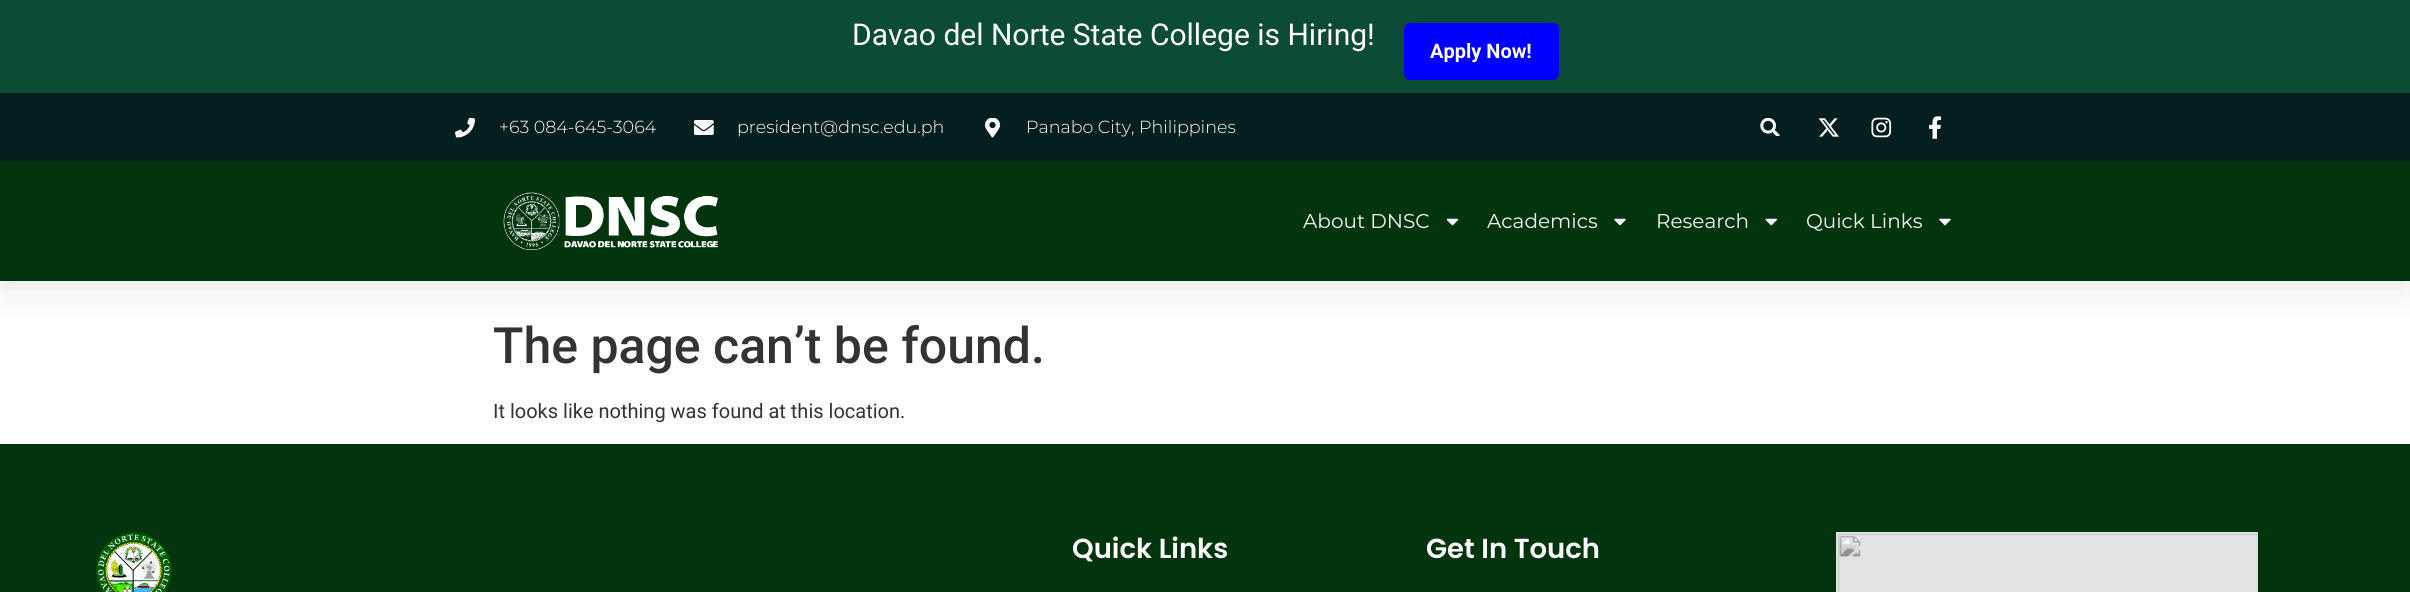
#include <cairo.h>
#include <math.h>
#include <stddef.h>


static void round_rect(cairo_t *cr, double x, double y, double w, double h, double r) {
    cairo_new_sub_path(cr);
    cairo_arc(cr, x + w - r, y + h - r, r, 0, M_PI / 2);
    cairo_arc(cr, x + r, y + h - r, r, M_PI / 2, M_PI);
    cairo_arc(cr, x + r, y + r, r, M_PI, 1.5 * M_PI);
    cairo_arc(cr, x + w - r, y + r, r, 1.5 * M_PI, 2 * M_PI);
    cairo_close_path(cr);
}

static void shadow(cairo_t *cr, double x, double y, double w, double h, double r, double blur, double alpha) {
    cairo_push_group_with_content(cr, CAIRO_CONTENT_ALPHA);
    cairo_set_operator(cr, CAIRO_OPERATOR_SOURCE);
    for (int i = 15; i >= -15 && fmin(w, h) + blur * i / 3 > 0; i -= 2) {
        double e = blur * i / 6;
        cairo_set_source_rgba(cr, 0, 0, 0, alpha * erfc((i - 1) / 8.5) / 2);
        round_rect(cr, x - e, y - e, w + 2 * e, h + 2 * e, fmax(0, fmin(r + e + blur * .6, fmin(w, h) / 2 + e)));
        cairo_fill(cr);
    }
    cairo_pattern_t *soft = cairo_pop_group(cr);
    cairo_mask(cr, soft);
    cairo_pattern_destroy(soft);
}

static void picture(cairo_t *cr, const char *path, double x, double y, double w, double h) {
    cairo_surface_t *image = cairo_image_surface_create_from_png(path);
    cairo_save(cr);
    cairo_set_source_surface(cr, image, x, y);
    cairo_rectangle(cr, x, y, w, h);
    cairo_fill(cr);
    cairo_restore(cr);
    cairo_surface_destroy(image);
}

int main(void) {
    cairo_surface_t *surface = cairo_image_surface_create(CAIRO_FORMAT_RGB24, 2410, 592);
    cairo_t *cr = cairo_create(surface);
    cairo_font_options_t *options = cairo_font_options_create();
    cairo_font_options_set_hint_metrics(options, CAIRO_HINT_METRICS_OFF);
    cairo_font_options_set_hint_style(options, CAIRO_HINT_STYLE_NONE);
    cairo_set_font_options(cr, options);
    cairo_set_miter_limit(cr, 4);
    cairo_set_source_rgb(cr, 1, 1, 1);
    cairo_paint(cr);
    cairo_set_source_rgb(cr, 0, 0, 0);
    shadow(cr, 0, 99, 2410, 189, 0, 19, 0.1);
    cairo_set_source_rgb(cr, 0.047, 0.294, 0.212);
    cairo_rectangle(cr, 0, 0, 2410, 93);
    cairo_fill(cr);
    cairo_select_font_face(cr, "Roboto", CAIRO_FONT_SLANT_NORMAL, CAIRO_FONT_WEIGHT_NORMAL);
    cairo_set_font_size(cr, 30);
    cairo_set_source_rgb(cr, 1, 1, 1);
    cairo_move_to(cr, 852, 45);
    cairo_show_text(cr, "Davao del Norte State College is Hiring!");
    cairo_set_source_rgb(cr, 0, 0, 1);
    round_rect(cr, 1404.5, 23.5, 154, 56, 5.5);
    cairo_fill_preserve(cr);
    cairo_set_line_width(cr, 1);
    cairo_stroke(cr);
    cairo_select_font_face(cr, "Roboto", CAIRO_FONT_SLANT_NORMAL, CAIRO_FONT_WEIGHT_BOLD);
    cairo_set_font_size(cr, 20);
    cairo_set_source_rgb(cr, 1, 1, 1);
    cairo_move_to(cr, 1430, 58);
    cairo_show_text(cr, "Apply Now!");
    cairo_set_source_rgb(cr, 0.02, 0.122, 0.125);
    cairo_rectangle(cr, 0, 93, 2410, 68);
    cairo_fill(cr);
    picture(cr, "img1.png", 455, 118, 20, 20);
    cairo_select_font_face(cr, "Montserrat Light", CAIRO_FONT_SLANT_NORMAL, CAIRO_FONT_WEIGHT_NORMAL);
    cairo_set_font_size(cr, 17.5);
    cairo_set_source_rgb(cr, 1, 1, 1);
    cairo_move_to(cr, 499, 133);
    cairo_show_text(cr, "+63 084-645-3064");
    picture(cr, "img2.png", 694, 120, 20, 15);
    cairo_move_to(cr, 737, 133);
    cairo_show_text(cr, "president@dnsc.edu.ph");
    picture(cr, "img3.png", 985, 118, 15, 20);
    cairo_move_to(cr, 1026, 133);
    cairo_show_text(cr, "Panabo City, Philippines");
    picture(cr, "img4.png", 1760, 118, 20, 18);
    picture(cr, "img5.png", 1818, 118, 21, 19);
    picture(cr, "img6.png", 1871, 117, 21, 21);
    picture(cr, "img7.png", 1928, 116, 14, 23);
    cairo_set_source_rgb(cr, 0.008, 0.208, 0.051);
    cairo_rectangle(cr, 0, 161, 2410, 120);
    cairo_fill(cr);
    picture(cr, "img8.png", 503, 192, 215, 58);
    cairo_select_font_face(cr, "Montserrat", CAIRO_FONT_SLANT_NORMAL, CAIRO_FONT_WEIGHT_NORMAL);
    cairo_set_font_size(cr, 20);
    cairo_set_source_rgb(cr, 0.961, 0.961, 0.969);
    cairo_move_to(cr, 1303, 228);
    cairo_show_text(cr, "About DNSC");
    picture(cr, "img9.png", 1446, 218, 13, 8);
    cairo_move_to(cr, 1487, 228);
    cairo_show_text(cr, "Academics");
    picture(cr, "img10.png", 1614, 218, 12, 8);
    cairo_move_to(cr, 1656, 228);
    cairo_show_text(cr, "Research");
    picture(cr, "img11.png", 1765, 218, 12, 8);
    cairo_move_to(cr, 1806, 228);
    cairo_show_text(cr, "Quick Links");
    picture(cr, "img10.png", 1939, 218, 12, 8);
    cairo_select_font_face(cr, "Roboto Medium", CAIRO_FONT_SLANT_NORMAL, CAIRO_FONT_WEIGHT_NORMAL);
    cairo_set_font_size(cr, 50);
    cairo_set_source_rgb(cr, 0.2, 0.2, 0.2);
    cairo_move_to(cr, 493, 363);
    cairo_show_text(cr, "The page can’t be found.");
    cairo_select_font_face(cr, "Roboto", CAIRO_FONT_SLANT_NORMAL, CAIRO_FONT_WEIGHT_NORMAL);
    cairo_set_font_size(cr, 20);
    cairo_move_to(cr, 493, 418);
    cairo_show_text(cr, "It looks like nothing was found at this location.");
    cairo_set_source_rgb(cr, 0.008, 0.208, 0.051);
    cairo_rectangle(cr, 0, 444, 2410, 148);
    cairo_fill(cr);
    picture(cr, "img12.png", 96, 532, 76, 60);
    cairo_select_font_face(cr, "Poppins SemiBold", CAIRO_FONT_SLANT_NORMAL, CAIRO_FONT_WEIGHT_NORMAL);
    cairo_set_font_size(cr, 27.5);
    cairo_set_source_rgb(cr, 1, 1, 1);
    cairo_move_to(cr, 1072, 558);
    cairo_show_text(cr, "Quick Links");
    cairo_move_to(cr, 1426, 558);
    cairo_show_text(cr, "Get In Touch");
    picture(cr, "img13.png", 1836, 532, 422, 60);
    cairo_surface_write_to_png(surface, "page.png");
    cairo_font_options_destroy(options);
    cairo_destroy(cr);
    cairo_surface_destroy(surface);
    return 0;
}
